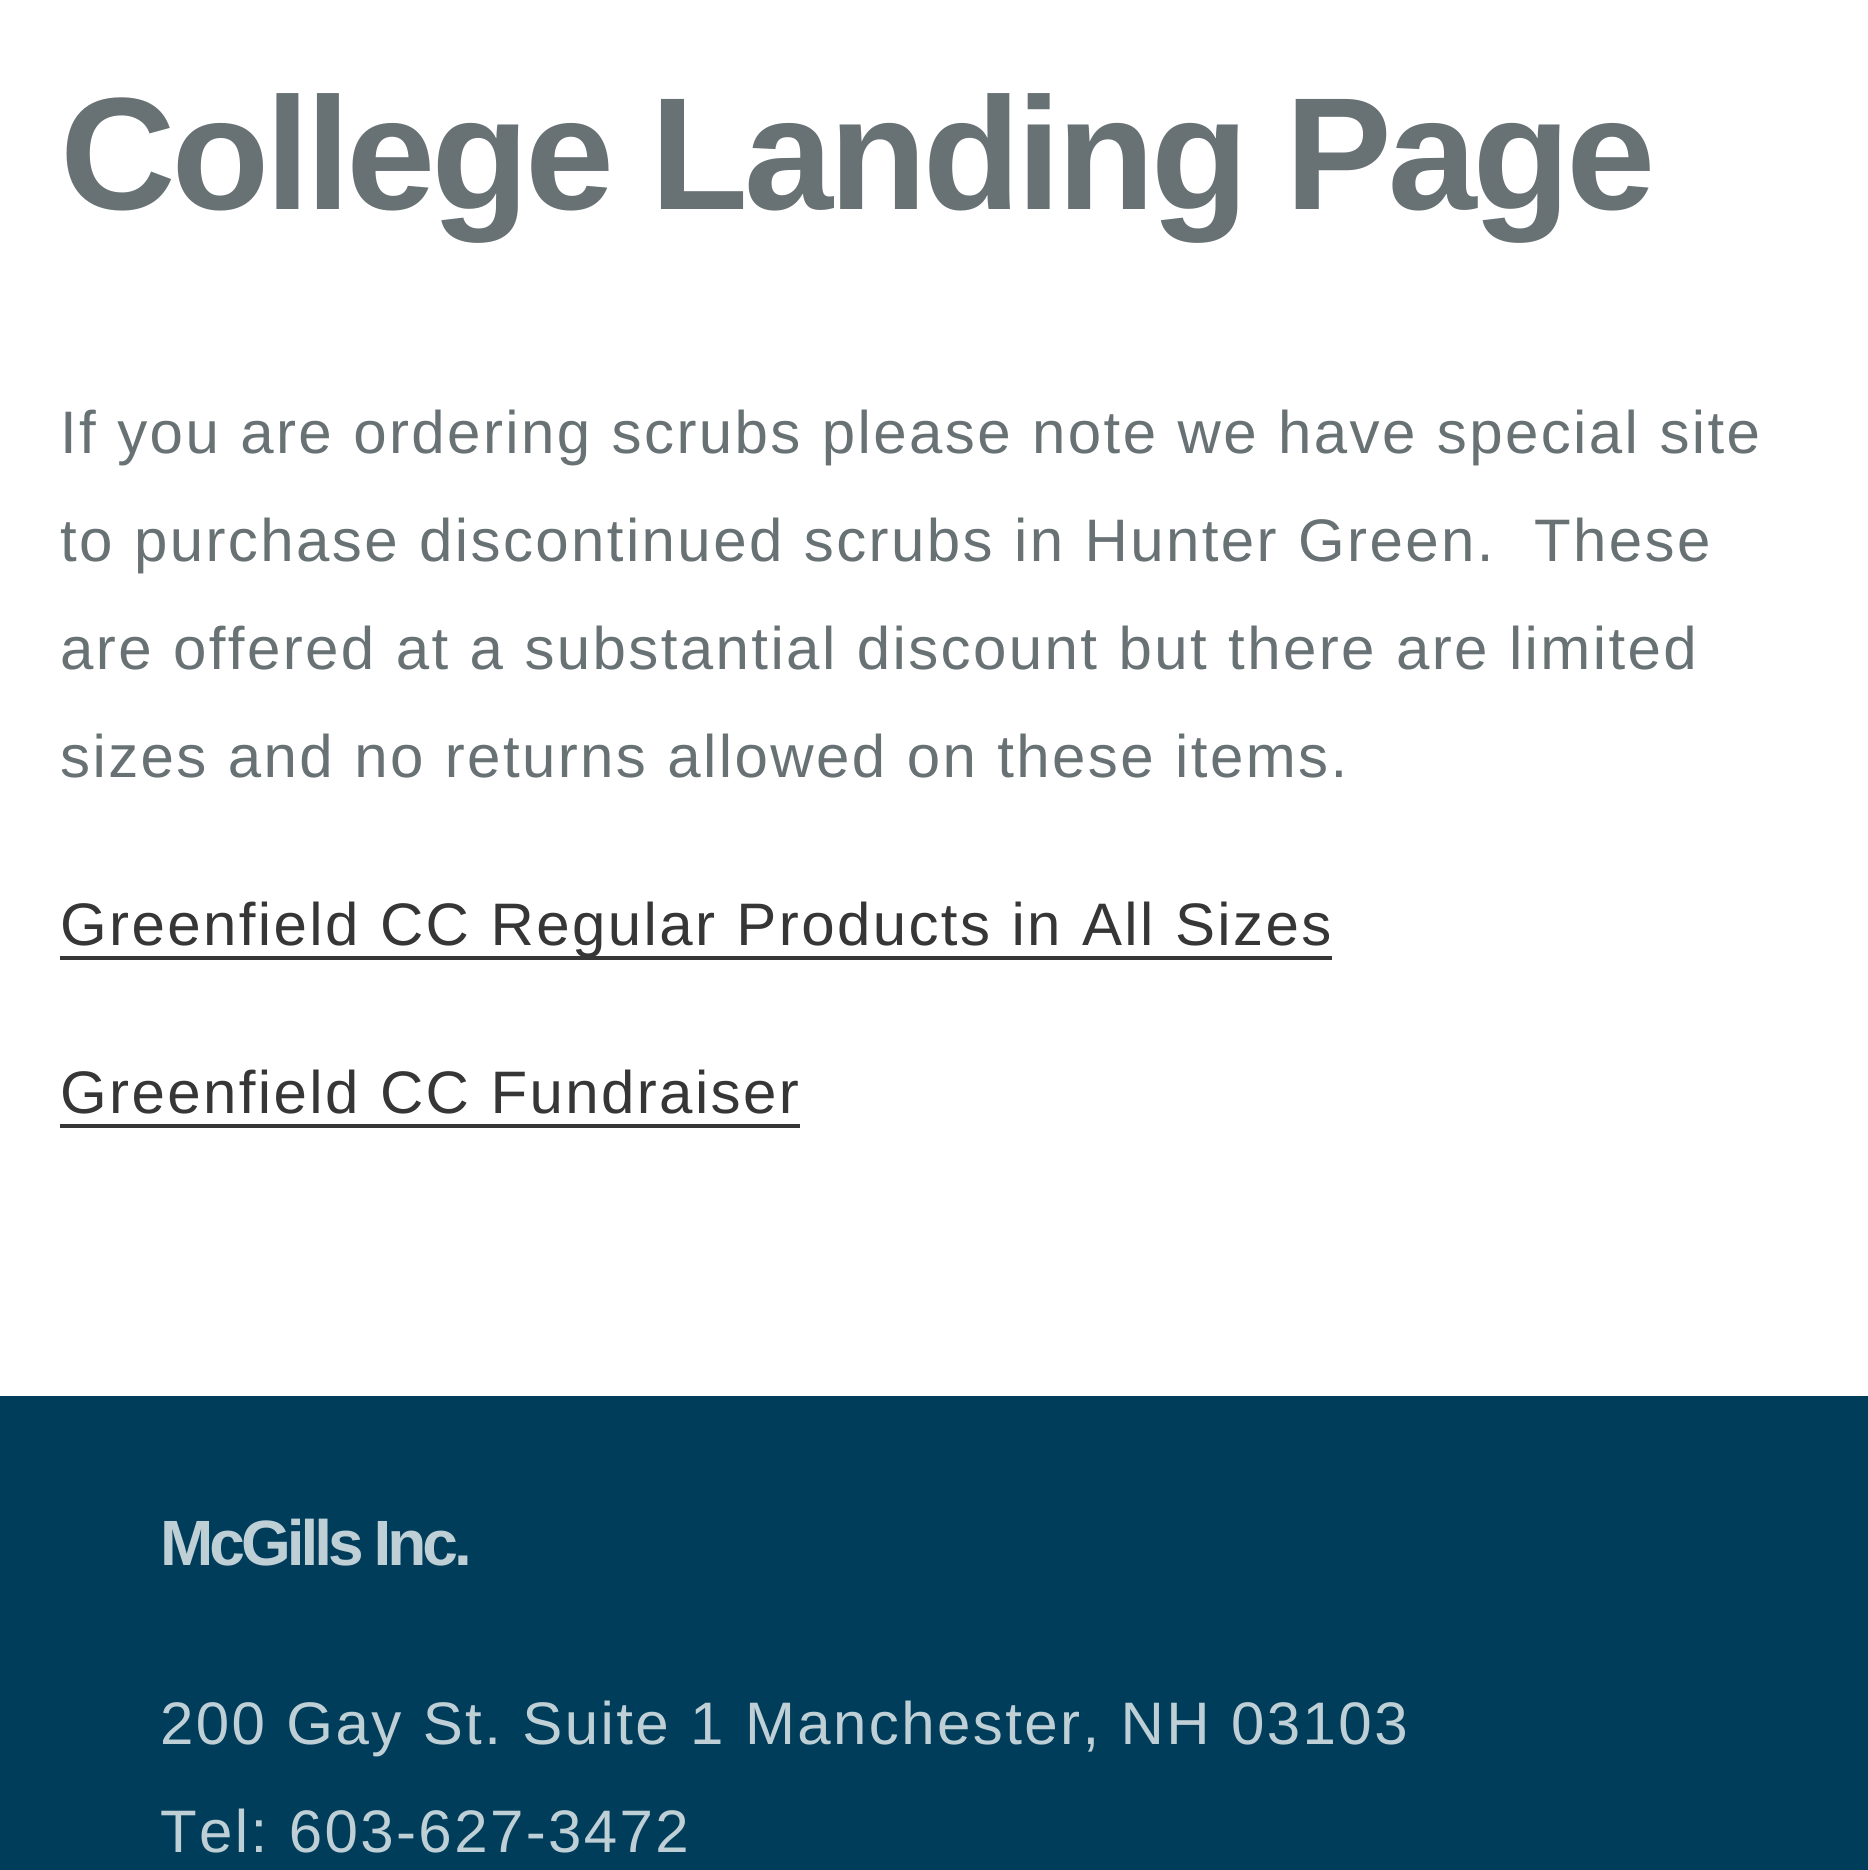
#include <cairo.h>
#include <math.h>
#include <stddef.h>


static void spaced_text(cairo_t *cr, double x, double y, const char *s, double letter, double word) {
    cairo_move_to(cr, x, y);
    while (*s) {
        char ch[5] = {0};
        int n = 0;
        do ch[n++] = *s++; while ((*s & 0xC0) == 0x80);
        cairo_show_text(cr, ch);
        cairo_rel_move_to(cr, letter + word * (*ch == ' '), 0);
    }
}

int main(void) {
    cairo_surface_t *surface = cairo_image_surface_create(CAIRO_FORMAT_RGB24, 1868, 1870);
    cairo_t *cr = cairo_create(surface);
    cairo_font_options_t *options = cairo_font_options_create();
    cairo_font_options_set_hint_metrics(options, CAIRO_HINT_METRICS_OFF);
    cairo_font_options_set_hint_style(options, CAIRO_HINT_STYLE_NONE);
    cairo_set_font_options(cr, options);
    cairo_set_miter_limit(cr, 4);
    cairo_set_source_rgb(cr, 1, 1, 1);
    cairo_paint(cr);
    cairo_select_font_face(cr, "Liberation Sans", CAIRO_FONT_SLANT_NORMAL, CAIRO_FONT_WEIGHT_BOLD);
    cairo_set_font_size(cr, 160);
    cairo_set_source_rgb(cr, 0.408, 0.443, 0.455);
    spaced_text(cr, 60, 209, "College Landing Page", -4, 0);
    cairo_select_font_face(cr, "Liberation Sans", CAIRO_FONT_SLANT_NORMAL, CAIRO_FONT_WEIGHT_NORMAL);
    cairo_set_font_size(cr, 60);
    spaced_text(cr, 60, 453, "If you are ordering scrubs please note we have special site", 2.4, 0);
    spaced_text(cr, 60, 561, "to purchase discontinued scrubs in Hunter Green.  These", 2.4, 0);
    spaced_text(cr, 60, 669, "are offered at a substantial discount but there are limited", 2.4, 0);
    spaced_text(cr, 60, 777, "sizes and no returns allowed on these items.", 2.4, 0);
    cairo_set_source_rgb(cr, 0.212, 0.212, 0.212);
    cairo_rectangle(cr, 60, 956, 1272, 4);
    cairo_fill(cr);
    spaced_text(cr, 60, 945, "Greenfield CC Regular Products in All Sizes", 2.4, 0);
    spaced_text(cr, 60, 1113, "Greenfield CC Fundraiser", 2.4, 0);
    cairo_rectangle(cr, 60, 1124, 740, 4);
    cairo_fill(cr);
    cairo_set_source_rgb(cr, 0, 0.239, 0.357);
    cairo_rectangle(cr, 0, 1396, 1868, 474);
    cairo_fill(cr);
    cairo_select_font_face(cr, "Liberation Sans", CAIRO_FONT_SLANT_NORMAL, CAIRO_FONT_WEIGHT_BOLD);
    cairo_set_font_size(cr, 64);
    cairo_set_source_rgb(cr, 0.749, 0.812, 0.839);
    spaced_text(cr, 160, 1565, "McGills Inc.", -4, 0);
    cairo_select_font_face(cr, "Liberation Sans", CAIRO_FONT_SLANT_NORMAL, CAIRO_FONT_WEIGHT_NORMAL);
    cairo_set_font_size(cr, 60);
    spaced_text(cr, 160, 1744, "200 Gay St. Suite 1 Manchester, NH 03103", 2.4, 0);
    spaced_text(cr, 160, 1852, "Tel: 603-627-3472", 2.4, 0);
    cairo_surface_write_to_png(surface, "page.png");
    cairo_font_options_destroy(options);
    cairo_destroy(cr);
    cairo_surface_destroy(surface);
    return 0;
}
